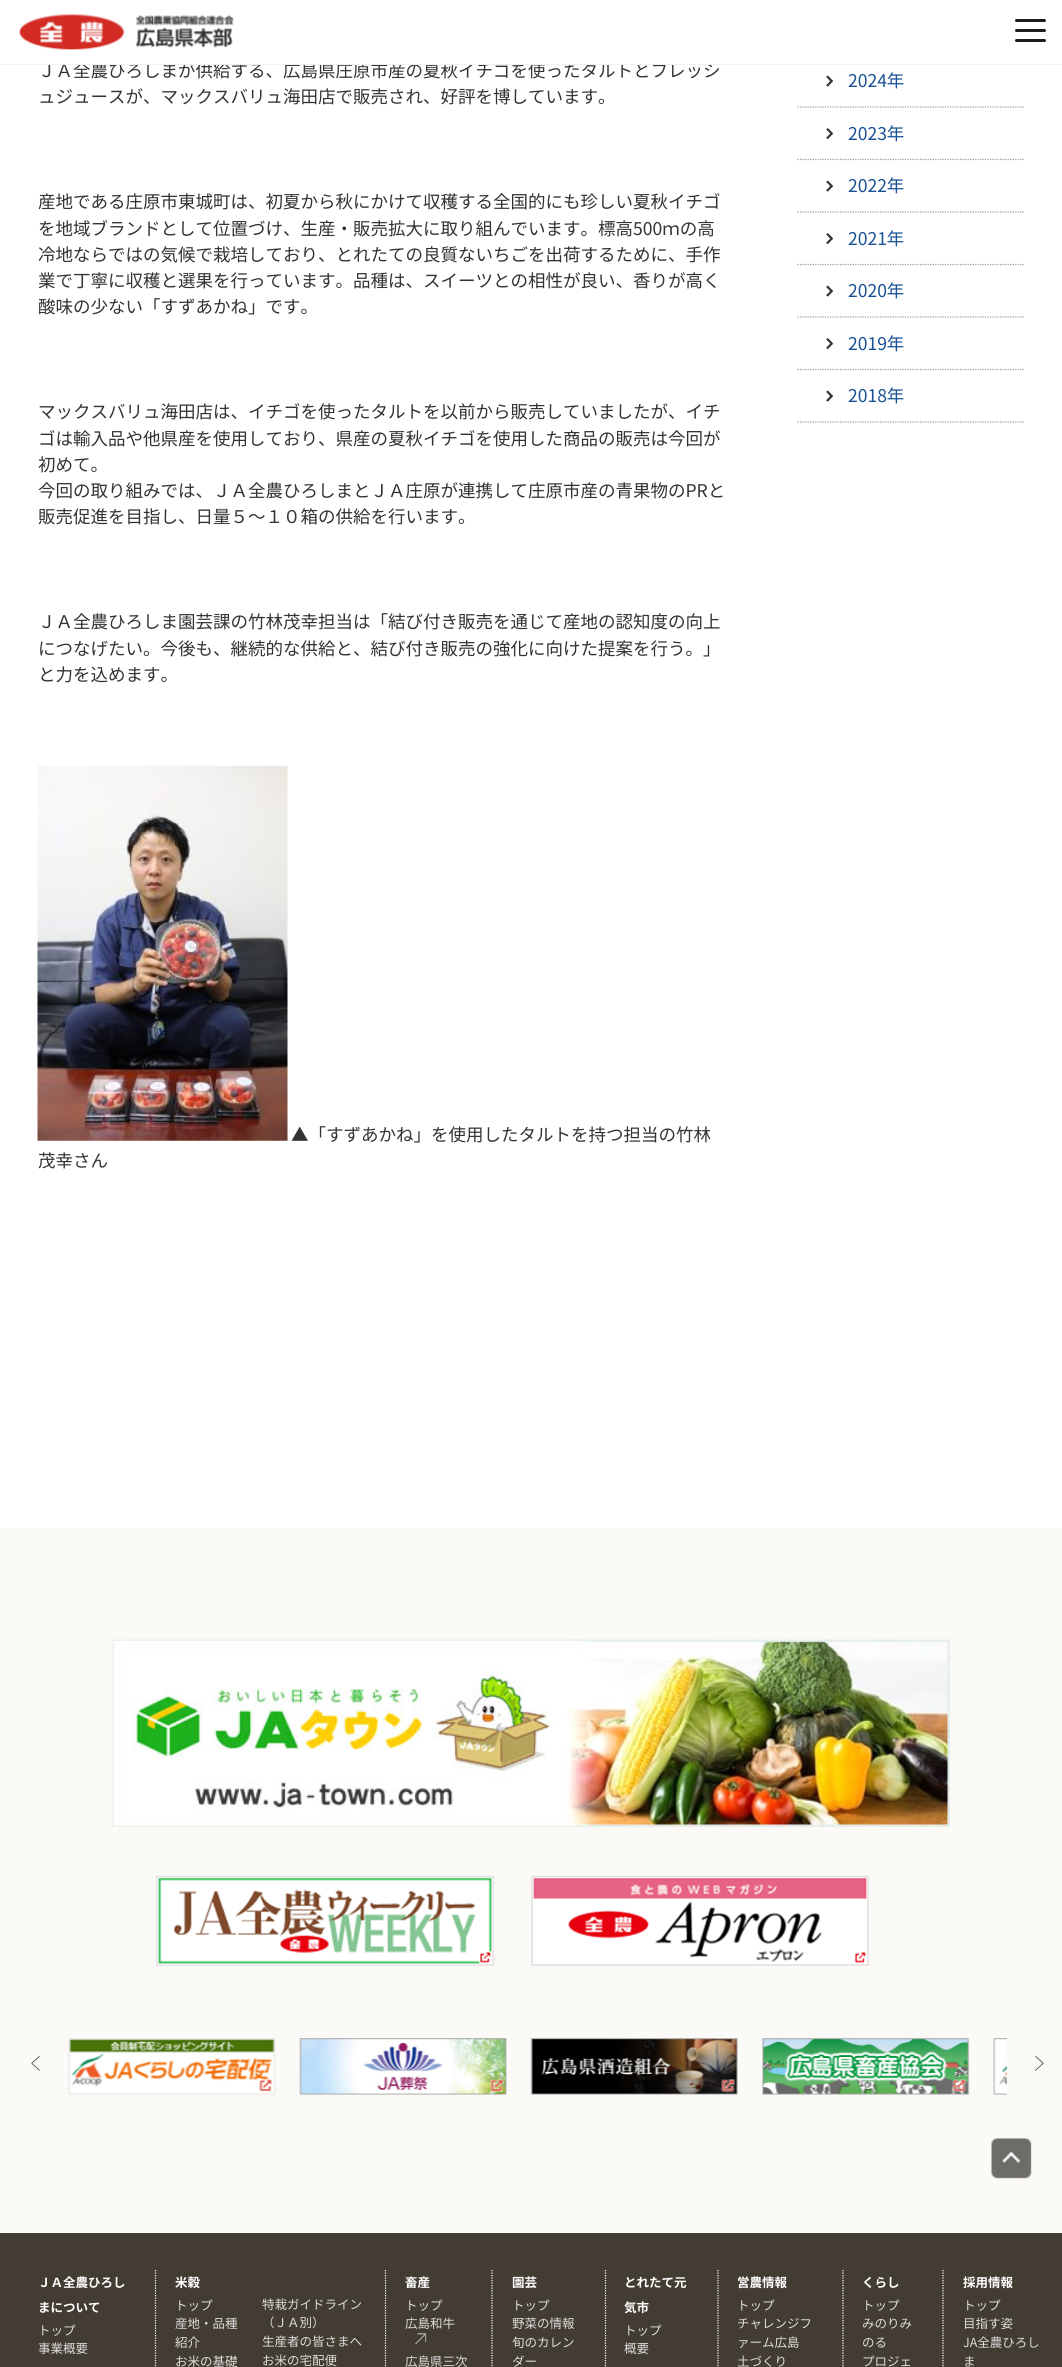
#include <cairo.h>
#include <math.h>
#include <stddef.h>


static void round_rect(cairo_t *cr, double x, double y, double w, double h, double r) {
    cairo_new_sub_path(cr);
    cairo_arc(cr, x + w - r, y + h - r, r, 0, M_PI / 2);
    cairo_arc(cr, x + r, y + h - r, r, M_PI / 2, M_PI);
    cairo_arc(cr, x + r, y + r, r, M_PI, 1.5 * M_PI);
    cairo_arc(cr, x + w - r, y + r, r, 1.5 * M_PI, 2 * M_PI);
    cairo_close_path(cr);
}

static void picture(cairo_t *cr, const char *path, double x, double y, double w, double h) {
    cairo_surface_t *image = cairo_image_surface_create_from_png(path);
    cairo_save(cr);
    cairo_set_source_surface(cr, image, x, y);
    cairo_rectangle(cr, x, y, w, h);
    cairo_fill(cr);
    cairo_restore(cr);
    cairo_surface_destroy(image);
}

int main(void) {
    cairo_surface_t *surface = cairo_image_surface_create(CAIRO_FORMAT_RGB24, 1062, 2367);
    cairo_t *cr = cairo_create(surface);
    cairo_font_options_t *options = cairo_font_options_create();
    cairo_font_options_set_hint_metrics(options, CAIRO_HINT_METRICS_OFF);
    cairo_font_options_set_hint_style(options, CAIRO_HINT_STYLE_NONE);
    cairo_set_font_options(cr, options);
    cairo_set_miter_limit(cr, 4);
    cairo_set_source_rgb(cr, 1, 1, 1);
    cairo_paint(cr);
    cairo_select_font_face(cr, "Noto Sans JP", CAIRO_FONT_SLANT_NORMAL, CAIRO_FONT_WEIGHT_NORMAL);
    cairo_set_font_size(cr, 17.5);
    cairo_set_source_rgb(cr, 0.2, 0.2, 0.2);
    cairo_move_to(cr, 38, 77);
    cairo_show_text(cr, "ＪＡ全農ひろしまが供給する、広島県庄原市産の夏秋イチゴを使ったタルトとフレッシ");
    cairo_set_source_rgb(cr, 1, 1, 1);
    cairo_rectangle(cr, 79, 62, 630, 2);
    cairo_fill(cr);
    cairo_set_source_rgb(cr, 0.941, 0.941, 0.941);
    cairo_rectangle(cr, 0, 64, 1062, 1);
    cairo_fill(cr);
    picture(cr, "img1.png", 19, 14, 215, 36);
    cairo_set_source_rgb(cr, 0.11, 0.11, 0.11);
    round_rect(cr, 1015, 19, 31, 3, 1.5);
    cairo_fill(cr);
    round_rect(cr, 1015, 29, 31, 3, 1.5);
    cairo_fill(cr);
    round_rect(cr, 1015, 39, 31, 3, 1.5);
    cairo_fill(cr);
    cairo_set_source_rgb(cr, 0.2, 0.2, 0.2);
    cairo_move_to(cr, 38, 103);
    cairo_show_text(cr, "ュジュースが、マックスバリュ海田店で販売され、好評を博しています。");
    cairo_move_to(cr, 38, 208);
    cairo_show_text(cr, "産地である庄原市東城町は、初夏から秋にかけて収穫する全国的にも珍しい夏秋イチゴ");
    cairo_move_to(cr, 38, 235);
    cairo_show_text(cr, "を地域ブランドとして位置づけ、生産・販売拡大に取り組んでいます。標高500ｍの高");
    cairo_move_to(cr, 38, 261);
    cairo_show_text(cr, "冷地ならではの気候で栽培しており、とれたての良質ないちごを出荷するために、手作");
    cairo_move_to(cr, 38, 287);
    cairo_show_text(cr, "業で丁寧に収穫と選果を行っています。品種は、スイーツとの相性が良い、香りが高く");
    cairo_move_to(cr, 38, 313);
    cairo_show_text(cr, "酸味の少ない「すずあかね」です。");
    cairo_move_to(cr, 38, 418);
    cairo_show_text(cr, "マックスバリュ海田店は、イチゴを使ったタルトを以前から販売していましたが、イチ");
    cairo_move_to(cr, 38, 445);
    cairo_show_text(cr, "ゴは輸入品や他県産を使用しており、県産の夏秋イチゴを使用した商品の販売は今回が");
    cairo_move_to(cr, 38, 471);
    cairo_show_text(cr, "初めて。");
    cairo_move_to(cr, 38, 497);
    cairo_show_text(cr, "今回の取り組みでは、ＪＡ全農ひろしまとＪＡ庄原が連携して庄原市産の青果物のPRと");
    cairo_move_to(cr, 38, 523);
    cairo_show_text(cr, "販売促進を目指し、日量５～１０箱の供給を行います。");
    cairo_move_to(cr, 38, 628);
    cairo_show_text(cr, "ＪＡ全農ひろしま園芸課の竹林茂幸担当は「結び付き販売を通じて産地の認知度の向上");
    cairo_move_to(cr, 38, 655);
    cairo_show_text(cr, "につなげたい。今後も、継続的な供給と、結び付き販売の強化に向けた提案を行う。」");
    cairo_move_to(cr, 38, 681);
    cairo_show_text(cr, "と力を込めます。");
    picture(cr, "img2.png", 37, 765, 251, 376);
    cairo_move_to(cr, 291, 1141);
    cairo_show_text(cr, "▲「すずあかね」を使用したタルトを持つ担当の竹林");
    cairo_move_to(cr, 38, 1167);
    cairo_show_text(cr, "茂幸さん");
    picture(cr, "img3.png", 826, 75, 7, 12);
    cairo_new_path(cr);
    cairo_move_to(cr, 797.5, 107);
    cairo_line_to(cr, 1025, 107);
    cairo_set_source_rgb(cr, 0.6, 0.6, 0.6);
    cairo_set_line_width(cr, 1.2);
    cairo_set_dash(cr, (double[]){1.25, 1.25}, 2, 0);
    cairo_stroke(cr);
    cairo_set_source_rgb(cr, 0.094, 0.314, 0.588);
    cairo_move_to(cr, 848, 87);
    cairo_show_text(cr, "2024年");
    picture(cr, "img4.png", 826, 127, 8, 13);
    cairo_new_path(cr);
    cairo_move_to(cr, 797.5, 159.5);
    cairo_line_to(cr, 1025, 159.5);
    cairo_set_source_rgb(cr, 0.6, 0.6, 0.6);
    cairo_stroke(cr);
    cairo_set_source_rgb(cr, 0.094, 0.314, 0.588);
    cairo_move_to(cr, 848, 140);
    cairo_show_text(cr, "2023年");
    picture(cr, "img3.png", 826, 180, 7, 12);
    cairo_new_path(cr);
    cairo_move_to(cr, 797.5, 212);
    cairo_line_to(cr, 1025, 212);
    cairo_set_source_rgb(cr, 0.6, 0.6, 0.6);
    cairo_stroke(cr);
    cairo_set_source_rgb(cr, 0.094, 0.314, 0.588);
    cairo_move_to(cr, 848, 192);
    cairo_show_text(cr, "2022年");
    picture(cr, "img4.png", 826, 232, 8, 13);
    cairo_new_path(cr);
    cairo_move_to(cr, 797.5, 264.5);
    cairo_line_to(cr, 1025, 264.5);
    cairo_set_source_rgb(cr, 0.6, 0.6, 0.6);
    cairo_stroke(cr);
    cairo_set_source_rgb(cr, 0.094, 0.314, 0.588);
    cairo_move_to(cr, 848, 245);
    cairo_show_text(cr, "2021年");
    picture(cr, "img3.png", 826, 285, 7, 12);
    cairo_new_path(cr);
    cairo_move_to(cr, 797.5, 317);
    cairo_line_to(cr, 1025, 317);
    cairo_set_source_rgb(cr, 0.6, 0.6, 0.6);
    cairo_stroke(cr);
    cairo_set_source_rgb(cr, 0.094, 0.314, 0.588);
    cairo_move_to(cr, 848, 297);
    cairo_show_text(cr, "2020年");
    picture(cr, "img5.png", 826, 337, 8, 13);
    cairo_new_path(cr);
    cairo_move_to(cr, 797.5, 369.5);
    cairo_line_to(cr, 1025, 369.5);
    cairo_set_source_rgb(cr, 0.6, 0.6, 0.6);
    cairo_stroke(cr);
    cairo_set_source_rgb(cr, 0.094, 0.314, 0.588);
    cairo_move_to(cr, 848, 350);
    cairo_show_text(cr, "2019年");
    picture(cr, "img3.png", 826, 390, 7, 12);
    cairo_new_path(cr);
    cairo_move_to(cr, 797.5, 422);
    cairo_line_to(cr, 1025, 422);
    cairo_set_source_rgb(cr, 0.6, 0.6, 0.6);
    cairo_stroke(cr);
    cairo_set_source_rgb(cr, 0.094, 0.314, 0.588);
    cairo_move_to(cr, 848, 402);
    cairo_show_text(cr, "2018年");
    cairo_set_source_rgb(cr, 0.988, 0.98, 0.965);
    cairo_rectangle(cr, 0, 1528, 1062, 705);
    cairo_fill(cr);
    picture(cr, "img6.png", 112, 1639, 838, 188);
    picture(cr, "img7.png", 156, 1875, 338, 91);
    picture(cr, "img8.png", 531, 1875, 338, 91);
    picture(cr, "img9.png", 68, 2038, 208, 57);
    picture(cr, "img10.png", 299, 2038, 208, 57);
    picture(cr, "img11.png", 530, 2038, 208, 57);
    picture(cr, "img12.png", 762, 2038, 208, 57);
    picture(cr, "img13.png", 993, 2038, 14, 57);
    picture(cr, "img14.png", 31, 2055, 9, 16);
    picture(cr, "img15.png", 1035, 2055, 9, 16);
    cairo_set_source_rgb(cr, 0.263, 0.235, 0.196);
    cairo_rectangle(cr, 0, 2233, 1062, 134);
    cairo_fill(cr);
    picture(cr, "img16.png", 991, 2138, 41, 41);
    cairo_new_path(cr);
    cairo_move_to(cr, 155.5, 2270);
    cairo_line_to(cr, 155.5, 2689);
    cairo_set_source_rgb(cr, 1, 1, 1);
    cairo_stroke(cr);
    cairo_select_font_face(cr, "Noto Sans JP", CAIRO_FONT_SLANT_NORMAL, CAIRO_FONT_WEIGHT_BOLD);
    cairo_set_font_size(cr, 12.5);
    cairo_move_to(cr, 38, 2287);
    cairo_show_text(cr, "ＪＡ全農ひろし");
    cairo_move_to(cr, 38, 2312);
    cairo_show_text(cr, "まについて");
    cairo_select_font_face(cr, "Noto Sans JP", CAIRO_FONT_SLANT_NORMAL, CAIRO_FONT_WEIGHT_NORMAL);
    cairo_set_source_rgb(cr, 0.863, 0.863, 0.863);
    cairo_move_to(cr, 38, 2335);
    cairo_show_text(cr, "トップ");
    cairo_move_to(cr, 38, 2353);
    cairo_show_text(cr, "事業概要");
    cairo_select_font_face(cr, "Noto Sans JP", CAIRO_FONT_SLANT_NORMAL, CAIRO_FONT_WEIGHT_BOLD);
    cairo_set_source_rgb(cr, 1, 1, 1);
    cairo_move_to(cr, 175, 2287);
    cairo_show_text(cr, "米穀");
    cairo_select_font_face(cr, "Noto Sans JP", CAIRO_FONT_SLANT_NORMAL, CAIRO_FONT_WEIGHT_NORMAL);
    cairo_set_source_rgb(cr, 0.863, 0.863, 0.863);
    cairo_move_to(cr, 175, 2310);
    cairo_show_text(cr, "トップ");
    cairo_move_to(cr, 175, 2328);
    cairo_show_text(cr, "産地・品種");
    cairo_move_to(cr, 175, 2347);
    cairo_show_text(cr, "紹介");
    cairo_move_to(cr, 175, 2366);
    cairo_show_text(cr, "お米の基礎");
    cairo_new_path(cr);
    cairo_move_to(cr, 385.5, 2270);
    cairo_line_to(cr, 385.5, 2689);
    cairo_set_source_rgb(cr, 1, 1, 1);
    cairo_stroke(cr);
    cairo_set_source_rgb(cr, 0.863, 0.863, 0.863);
    cairo_move_to(cr, 262, 2309);
    cairo_show_text(cr, "特栽ガイドライン");
    cairo_move_to(cr, 262, 2327);
    cairo_show_text(cr, "（ＪＡ別）");
    cairo_move_to(cr, 262, 2346);
    cairo_show_text(cr, "生産者の皆さまへ");
    cairo_move_to(cr, 262, 2365);
    cairo_show_text(cr, "お米の宅配便");
    cairo_new_path(cr);
    cairo_move_to(cr, 492, 2270);
    cairo_line_to(cr, 492, 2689);
    cairo_set_source_rgb(cr, 1, 1, 1);
    cairo_stroke(cr);
    cairo_select_font_face(cr, "Noto Sans JP", CAIRO_FONT_SLANT_NORMAL, CAIRO_FONT_WEIGHT_BOLD);
    cairo_move_to(cr, 405, 2287);
    cairo_show_text(cr, "畜産");
    cairo_select_font_face(cr, "Noto Sans JP", CAIRO_FONT_SLANT_NORMAL, CAIRO_FONT_WEIGHT_NORMAL);
    cairo_set_source_rgb(cr, 0.863, 0.863, 0.863);
    cairo_move_to(cr, 405, 2310);
    cairo_show_text(cr, "トップ");
    cairo_move_to(cr, 405, 2328);
    cairo_show_text(cr, "広島和牛");
    picture(cr, "img17.png", 415, 2333, 12, 12);
    cairo_move_to(cr, 405, 2366);
    cairo_show_text(cr, "広島県三次");
    cairo_new_path(cr);
    cairo_move_to(cr, 605.5, 2270);
    cairo_line_to(cr, 605.5, 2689);
    cairo_set_source_rgb(cr, 1, 1, 1);
    cairo_stroke(cr);
    cairo_select_font_face(cr, "Noto Sans JP", CAIRO_FONT_SLANT_NORMAL, CAIRO_FONT_WEIGHT_BOLD);
    cairo_move_to(cr, 512, 2287);
    cairo_show_text(cr, "園芸");
    cairo_select_font_face(cr, "Noto Sans JP", CAIRO_FONT_SLANT_NORMAL, CAIRO_FONT_WEIGHT_NORMAL);
    cairo_set_source_rgb(cr, 0.863, 0.863, 0.863);
    cairo_move_to(cr, 512, 2310);
    cairo_show_text(cr, "トップ");
    cairo_move_to(cr, 512, 2328);
    cairo_show_text(cr, "野菜の情報");
    cairo_move_to(cr, 512, 2347);
    cairo_show_text(cr, "旬のカレン");
    cairo_move_to(cr, 512, 2366);
    cairo_show_text(cr, "ダー");
    cairo_new_path(cr);
    cairo_move_to(cr, 718, 2270);
    cairo_line_to(cr, 718, 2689);
    cairo_set_source_rgb(cr, 1, 1, 1);
    cairo_stroke(cr);
    cairo_select_font_face(cr, "Noto Sans JP", CAIRO_FONT_SLANT_NORMAL, CAIRO_FONT_WEIGHT_BOLD);
    cairo_move_to(cr, 624, 2287);
    cairo_show_text(cr, "とれたて元");
    cairo_move_to(cr, 624, 2312);
    cairo_show_text(cr, "気市");
    cairo_select_font_face(cr, "Noto Sans JP", CAIRO_FONT_SLANT_NORMAL, CAIRO_FONT_WEIGHT_NORMAL);
    cairo_set_source_rgb(cr, 0.863, 0.863, 0.863);
    cairo_move_to(cr, 624, 2335);
    cairo_show_text(cr, "トップ");
    cairo_move_to(cr, 624, 2353);
    cairo_show_text(cr, "概要");
    cairo_new_path(cr);
    cairo_move_to(cr, 843, 2270);
    cairo_line_to(cr, 843, 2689);
    cairo_set_source_rgb(cr, 1, 1, 1);
    cairo_stroke(cr);
    cairo_select_font_face(cr, "Noto Sans JP", CAIRO_FONT_SLANT_NORMAL, CAIRO_FONT_WEIGHT_BOLD);
    cairo_move_to(cr, 737, 2287);
    cairo_show_text(cr, "営農情報");
    cairo_select_font_face(cr, "Noto Sans JP", CAIRO_FONT_SLANT_NORMAL, CAIRO_FONT_WEIGHT_NORMAL);
    cairo_set_source_rgb(cr, 0.863, 0.863, 0.863);
    cairo_move_to(cr, 737, 2310);
    cairo_show_text(cr, "トップ");
    cairo_move_to(cr, 737, 2328);
    cairo_show_text(cr, "チャレンジフ");
    cairo_move_to(cr, 737, 2347);
    cairo_show_text(cr, "ァーム広島");
    cairo_move_to(cr, 737, 2366);
    cairo_show_text(cr, "土づくり");
    cairo_new_path(cr);
    cairo_move_to(cr, 943, 2270);
    cairo_line_to(cr, 943, 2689);
    cairo_set_source_rgb(cr, 1, 1, 1);
    cairo_stroke(cr);
    cairo_select_font_face(cr, "Noto Sans JP", CAIRO_FONT_SLANT_NORMAL, CAIRO_FONT_WEIGHT_BOLD);
    cairo_move_to(cr, 862, 2287);
    cairo_show_text(cr, "くらし");
    cairo_select_font_face(cr, "Noto Sans JP", CAIRO_FONT_SLANT_NORMAL, CAIRO_FONT_WEIGHT_NORMAL);
    cairo_set_source_rgb(cr, 0.863, 0.863, 0.863);
    cairo_move_to(cr, 862, 2310);
    cairo_show_text(cr, "トップ");
    cairo_move_to(cr, 862, 2328);
    cairo_show_text(cr, "みのりみ");
    cairo_move_to(cr, 862, 2347);
    cairo_show_text(cr, "のる");
    cairo_move_to(cr, 862, 2366);
    cairo_show_text(cr, "プロジェ");
    cairo_select_font_face(cr, "Noto Sans JP", CAIRO_FONT_SLANT_NORMAL, CAIRO_FONT_WEIGHT_BOLD);
    cairo_set_source_rgb(cr, 1, 1, 1);
    cairo_move_to(cr, 963, 2287);
    cairo_show_text(cr, "採用情報");
    cairo_select_font_face(cr, "Noto Sans JP", CAIRO_FONT_SLANT_NORMAL, CAIRO_FONT_WEIGHT_NORMAL);
    cairo_set_source_rgb(cr, 0.863, 0.863, 0.863);
    cairo_move_to(cr, 963, 2310);
    cairo_show_text(cr, "トップ");
    cairo_move_to(cr, 963, 2328);
    cairo_show_text(cr, "目指す姿");
    cairo_move_to(cr, 963, 2347);
    cairo_show_text(cr, "JA全農ひろし");
    cairo_move_to(cr, 963, 2366);
    cairo_show_text(cr, "ま");
    cairo_surface_write_to_png(surface, "page.png");
    cairo_font_options_destroy(options);
    cairo_destroy(cr);
    cairo_surface_destroy(surface);
    return 0;
}
